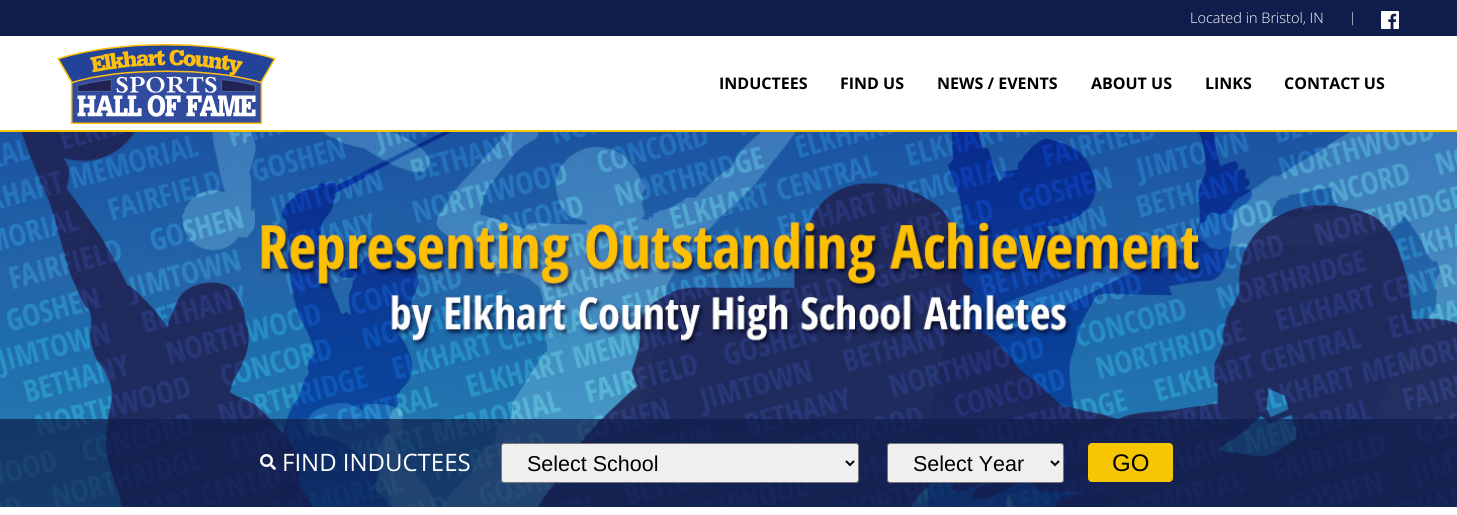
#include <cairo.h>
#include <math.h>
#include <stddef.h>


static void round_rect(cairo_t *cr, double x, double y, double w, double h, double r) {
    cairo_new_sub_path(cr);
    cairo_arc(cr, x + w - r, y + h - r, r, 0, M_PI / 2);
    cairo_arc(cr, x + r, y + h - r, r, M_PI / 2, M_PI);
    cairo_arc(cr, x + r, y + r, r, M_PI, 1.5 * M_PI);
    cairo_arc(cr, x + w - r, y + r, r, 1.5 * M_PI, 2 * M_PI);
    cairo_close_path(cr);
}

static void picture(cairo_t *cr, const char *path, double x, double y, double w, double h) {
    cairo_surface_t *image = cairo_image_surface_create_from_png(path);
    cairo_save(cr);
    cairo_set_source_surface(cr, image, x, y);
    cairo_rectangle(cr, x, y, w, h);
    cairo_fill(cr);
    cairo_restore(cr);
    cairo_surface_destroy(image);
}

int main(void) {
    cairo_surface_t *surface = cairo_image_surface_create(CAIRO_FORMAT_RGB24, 1457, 515);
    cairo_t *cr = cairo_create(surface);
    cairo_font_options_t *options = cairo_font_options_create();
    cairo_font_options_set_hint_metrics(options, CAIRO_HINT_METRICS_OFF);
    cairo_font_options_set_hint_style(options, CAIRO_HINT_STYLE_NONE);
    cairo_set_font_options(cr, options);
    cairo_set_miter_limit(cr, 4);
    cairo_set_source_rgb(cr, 1, 1, 1);
    cairo_paint(cr);
    cairo_set_source_rgb(cr, 0.961, 0.773, 0.012);
    cairo_rectangle(cr, 0, 130, 1457, 2);
    cairo_fill(cr);
    cairo_set_source_rgb(cr, 0.059, 0.114, 0.298);
    cairo_rectangle(cr, 0, 0, 1457, 36);
    cairo_fill(cr);
    cairo_select_font_face(cr, "Open Sans Light", CAIRO_FONT_SLANT_NORMAL, CAIRO_FONT_WEIGHT_NORMAL);
    cairo_set_font_size(cr, 14.5);
    cairo_set_source_rgb(cr, 1, 1, 1);
    cairo_move_to(cr, 1190, 23);
    cairo_show_text(cr, "Located in Bristol, IN");
    cairo_set_font_size(cr, 13);
    cairo_move_to(cr, 1349, 22);
    cairo_show_text(cr, "|");
    picture(cr, "img1.png", 1381, 11, 18, 18);
    picture(cr, "img2.png", 57, 44, 219, 80);
    cairo_select_font_face(cr, "Open Sans", CAIRO_FONT_SLANT_NORMAL, CAIRO_FONT_WEIGHT_BOLD);
    cairo_set_font_size(cr, 16);
    cairo_set_source_rgb(cr, 0, 0, 0);
    cairo_move_to(cr, 719, 89);
    cairo_show_text(cr, "INDUCTEES");
    cairo_move_to(cr, 840, 89);
    cairo_show_text(cr, "FIND US");
    cairo_move_to(cr, 937, 89);
    cairo_show_text(cr, "NEWS / EVENTS");
    cairo_move_to(cr, 1091, 89);
    cairo_show_text(cr, "ABOUT US");
    cairo_move_to(cr, 1205, 89);
    cairo_show_text(cr, "LINKS");
    cairo_move_to(cr, 1284, 89);
    cairo_show_text(cr, "CONTACT US");
    picture(cr, "img3.png", 0, 132, 1457, 375);
    cairo_set_source_rgba(cr, 0.059, 0.114, 0.298, 0.7);
    cairo_rectangle(cr, 0, 419, 1457, 88);
    cairo_fill(cr);
    picture(cr, "img4.png", 260, 454, 16, 16);
    cairo_select_font_face(cr, "Open Sans", CAIRO_FONT_SLANT_NORMAL, CAIRO_FONT_WEIGHT_NORMAL);
    cairo_set_font_size(cr, 24);
    cairo_set_source_rgb(cr, 1, 1, 1);
    cairo_move_to(cr, 282, 471);
    cairo_show_text(cr, "FIND INDUCTEES");
    cairo_set_source_rgb(cr, 0.937, 0.937, 0.937);
    round_rect(cr, 501.5, 443.5, 357, 39, 2.5);
    cairo_fill_preserve(cr);
    cairo_set_source_rgb(cr, 0.463, 0.463, 0.463);
    cairo_set_line_width(cr, 1);
    cairo_stroke(cr);
    cairo_new_path(cr);
    cairo_move_to(cr, 846, 461);
    cairo_line_to(cr, 850, 465);
    cairo_line_to(cr, 854, 461);
    cairo_set_source_rgb(cr, 0, 0, 0);
    cairo_set_line_width(cr, 2);
    cairo_stroke(cr);
    cairo_select_font_face(cr, "Liberation Sans", CAIRO_FONT_SLANT_NORMAL, CAIRO_FONT_WEIGHT_NORMAL);
    cairo_set_font_size(cr, 21.5);
    cairo_move_to(cr, 527, 471);
    cairo_show_text(cr, "Select School");
    cairo_set_source_rgb(cr, 0.937, 0.937, 0.937);
    round_rect(cr, 887.5, 443.5, 176, 39, 2.5);
    cairo_fill_preserve(cr);
    cairo_set_source_rgb(cr, 0.463, 0.463, 0.463);
    cairo_set_line_width(cr, 1);
    cairo_stroke(cr);
    cairo_new_path(cr);
    cairo_move_to(cr, 1051, 461);
    cairo_line_to(cr, 1055, 465);
    cairo_line_to(cr, 1059, 461);
    cairo_set_source_rgb(cr, 0, 0, 0);
    cairo_set_line_width(cr, 2);
    cairo_stroke(cr);
    cairo_move_to(cr, 913, 471);
    cairo_show_text(cr, "Select Year");
    cairo_set_source_rgb(cr, 0.961, 0.773, 0.012);
    round_rect(cr, 1088, 443, 85, 39, 4);
    cairo_fill(cr);
    cairo_set_font_size(cr, 24);
    cairo_set_source_rgb(cr, 0, 0, 0);
    cairo_move_to(cr, 1112, 471);
    cairo_show_text(cr, "GO");
    cairo_surface_write_to_png(surface, "page.png");
    cairo_font_options_destroy(options);
    cairo_destroy(cr);
    cairo_surface_destroy(surface);
    return 0;
}
